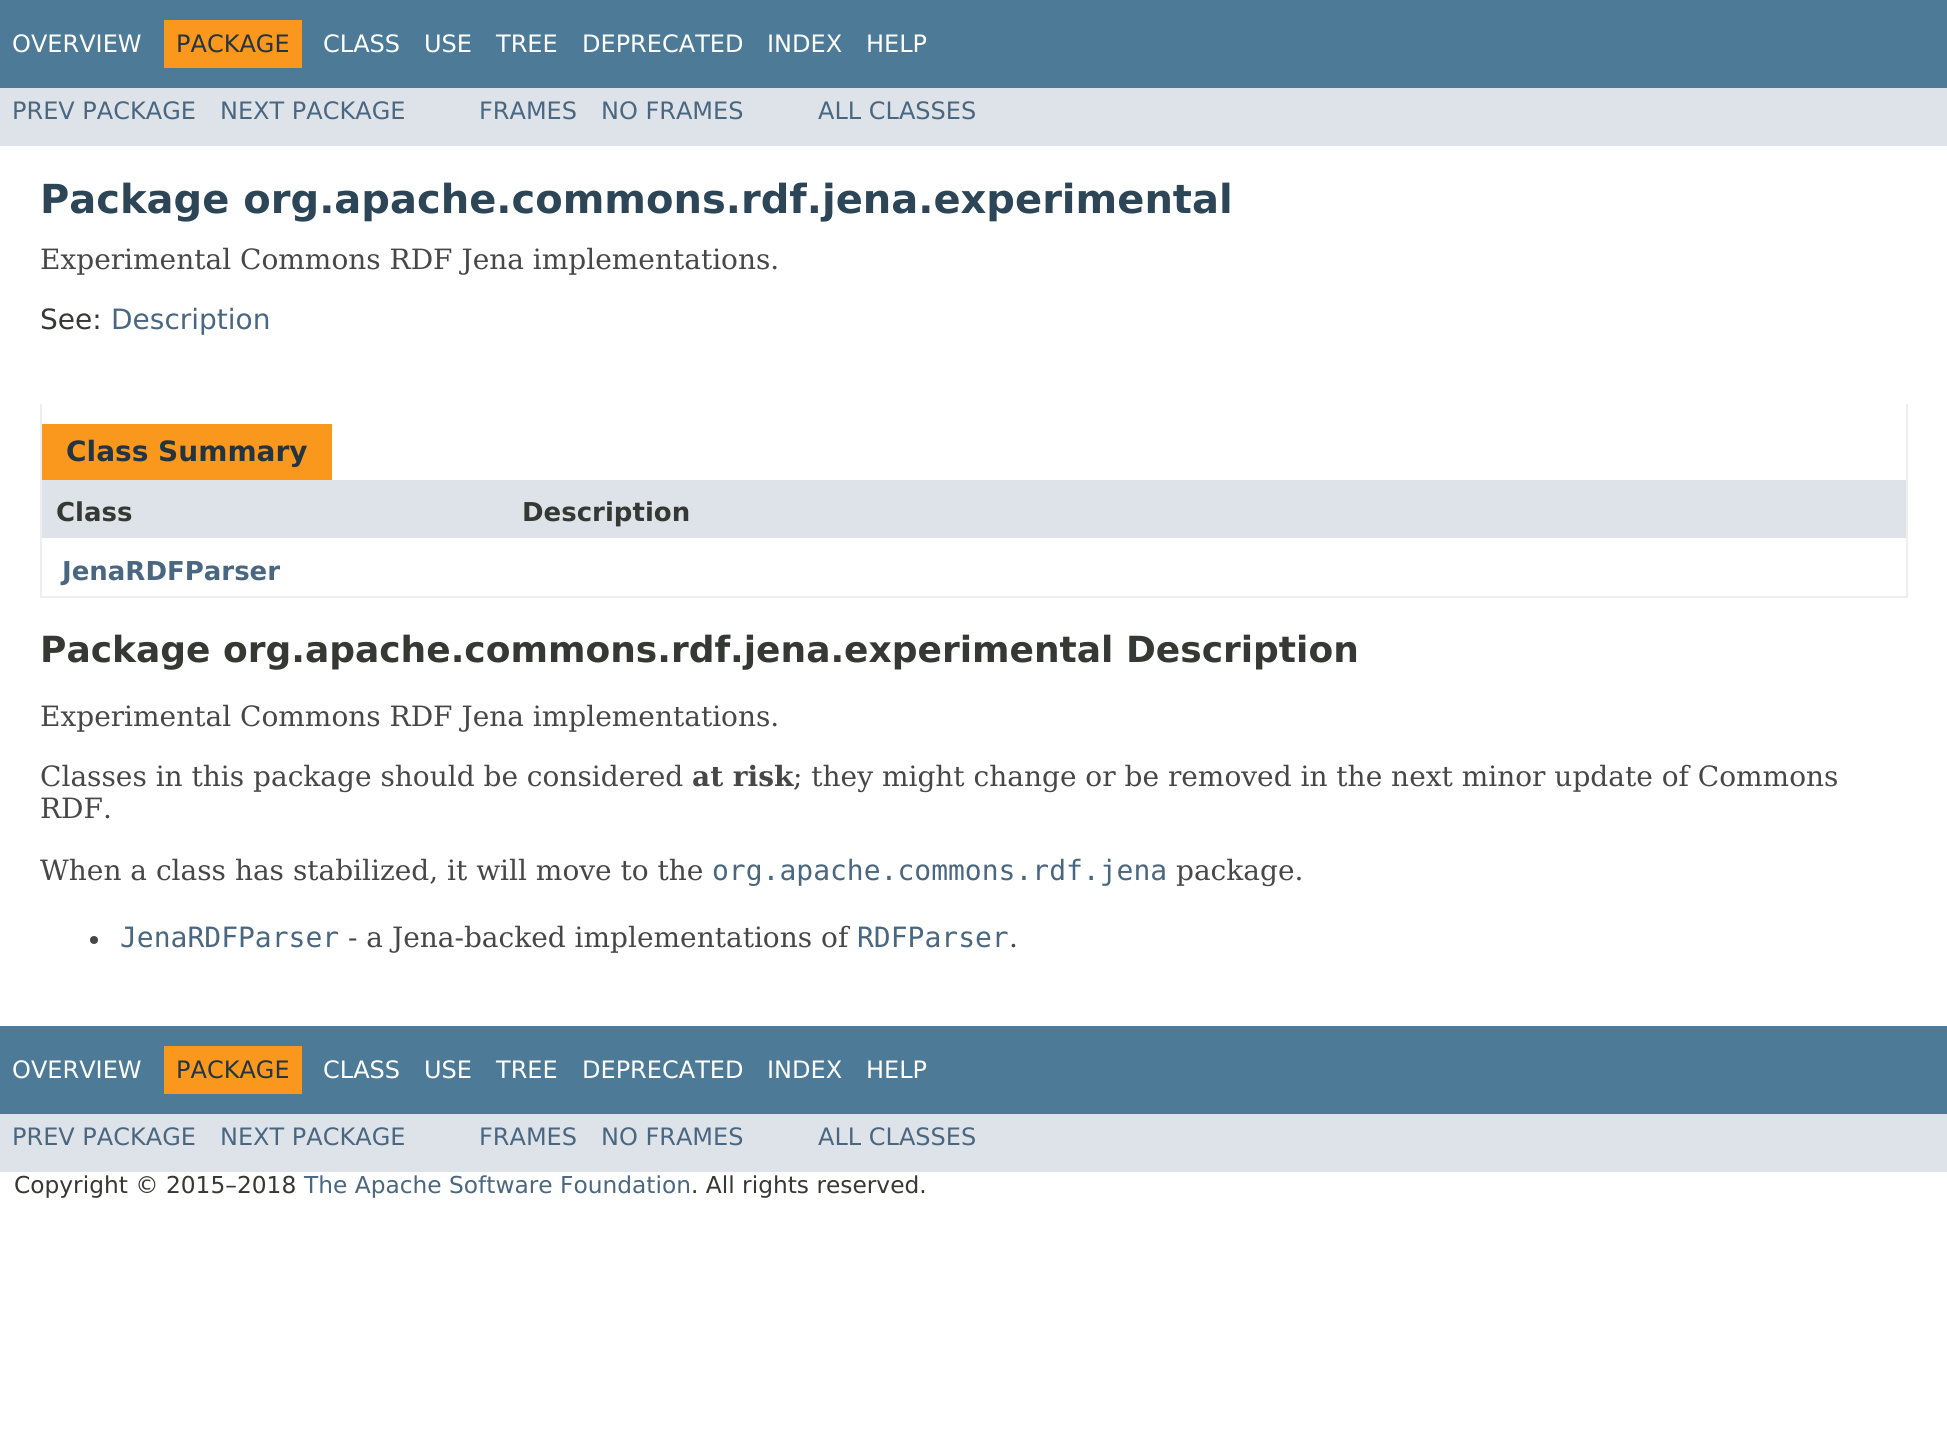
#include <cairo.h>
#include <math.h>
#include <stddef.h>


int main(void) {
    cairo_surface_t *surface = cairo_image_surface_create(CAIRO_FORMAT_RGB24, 1947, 1456);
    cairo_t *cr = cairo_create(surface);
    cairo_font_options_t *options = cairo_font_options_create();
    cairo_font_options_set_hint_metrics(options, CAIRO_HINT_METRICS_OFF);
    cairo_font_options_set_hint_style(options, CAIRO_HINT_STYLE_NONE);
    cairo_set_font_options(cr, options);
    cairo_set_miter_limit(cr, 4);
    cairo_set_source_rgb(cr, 1, 1, 1);
    cairo_paint(cr);
    cairo_set_source_rgb(cr, 0.302, 0.478, 0.592);
    cairo_rectangle(cr, 0, 0, 1947, 88);
    cairo_fill(cr);
    cairo_select_font_face(cr, "DejaVu Sans", CAIRO_FONT_SLANT_NORMAL, CAIRO_FONT_WEIGHT_NORMAL);
    cairo_set_font_size(cr, 24);
    cairo_set_source_rgb(cr, 1, 1, 1);
    cairo_move_to(cr, 12, 52);
    cairo_show_text(cr, "OVERVIEW");
    cairo_set_source_rgb(cr, 0.973, 0.596, 0.114);
    cairo_rectangle(cr, 164, 20, 138, 48);
    cairo_fill(cr);
    cairo_set_source_rgb(cr, 0.145, 0.204, 0.255);
    cairo_move_to(cr, 176, 52);
    cairo_show_text(cr, "PACKAGE");
    cairo_set_source_rgb(cr, 1, 1, 1);
    cairo_move_to(cr, 323, 52);
    cairo_show_text(cr, "CLASS");
    cairo_move_to(cr, 424, 52);
    cairo_show_text(cr, "USE");
    cairo_move_to(cr, 496, 52);
    cairo_show_text(cr, "TREE");
    cairo_move_to(cr, 582, 52);
    cairo_show_text(cr, "DEPRECATED");
    cairo_move_to(cr, 767, 52);
    cairo_show_text(cr, "INDEX");
    cairo_move_to(cr, 866, 52);
    cairo_show_text(cr, "HELP");
    cairo_set_source_rgb(cr, 0.871, 0.89, 0.914);
    cairo_rectangle(cr, 0, 88, 1947, 58);
    cairo_fill(cr);
    cairo_set_source_rgb(cr, 0.29, 0.404, 0.51);
    cairo_move_to(cr, 12, 119);
    cairo_show_text(cr, "PREV PACKAGE");
    cairo_move_to(cr, 220, 119);
    cairo_show_text(cr, "NEXT PACKAGE");
    cairo_move_to(cr, 479, 119);
    cairo_show_text(cr, "FRAMES");
    cairo_move_to(cr, 601, 119);
    cairo_show_text(cr, "NO FRAMES");
    cairo_move_to(cr, 818, 119);
    cairo_show_text(cr, "ALL CLASSES");
    cairo_select_font_face(cr, "DejaVu Sans", CAIRO_FONT_SLANT_NORMAL, CAIRO_FONT_WEIGHT_BOLD);
    cairo_set_font_size(cr, 40);
    cairo_set_source_rgb(cr, 0.173, 0.271, 0.341);
    cairo_move_to(cr, 40, 213);
    cairo_show_text(cr, "Package org.apache.commons.rdf.jena.experimental");
    cairo_select_font_face(cr, "DejaVu Serif", CAIRO_FONT_SLANT_NORMAL, CAIRO_FONT_WEIGHT_NORMAL);
    cairo_set_font_size(cr, 28);
    cairo_set_source_rgb(cr, 0.278, 0.278, 0.278);
    cairo_move_to(cr, 40, 269);
    cairo_show_text(cr, "Experimental Commons RDF Jena implementations.");
    cairo_select_font_face(cr, "DejaVu Sans", CAIRO_FONT_SLANT_NORMAL, CAIRO_FONT_WEIGHT_NORMAL);
    cairo_set_source_rgb(cr, 0.208, 0.22, 0.2);
    cairo_move_to(cr, 40, 329);
    cairo_show_text(cr, "See:");
    cairo_set_source_rgb(cr, 0.29, 0.404, 0.51);
    cairo_move_to(cr, 111, 329);
    cairo_show_text(cr, "Description");
    cairo_set_source_rgb(cr, 0.933, 0.933, 0.933);
    cairo_rectangle(cr, 1906, 404, 2, 194);
    cairo_fill(cr);
    cairo_rectangle(cr, 40, 596, 1868, 2);
    cairo_fill(cr);
    cairo_rectangle(cr, 40, 404, 2, 194);
    cairo_fill(cr);
    cairo_set_source_rgb(cr, 0.973, 0.596, 0.114);
    cairo_rectangle(cr, 42, 424, 290, 56);
    cairo_fill(cr);
    cairo_select_font_face(cr, "DejaVu Sans", CAIRO_FONT_SLANT_NORMAL, CAIRO_FONT_WEIGHT_BOLD);
    cairo_set_source_rgb(cr, 0.145, 0.204, 0.255);
    cairo_move_to(cr, 66, 461);
    cairo_show_text(cr, "Class Summary");
    cairo_set_source_rgb(cr, 0.871, 0.89, 0.914);
    cairo_rectangle(cr, 42, 480, 1864, 58);
    cairo_fill(cr);
    cairo_set_font_size(cr, 26);
    cairo_set_source_rgb(cr, 0.208, 0.22, 0.2);
    cairo_move_to(cr, 56, 521);
    cairo_show_text(cr, "Class");
    cairo_move_to(cr, 522, 521);
    cairo_show_text(cr, "Description");
    cairo_set_source_rgb(cr, 0.29, 0.404, 0.51);
    cairo_move_to(cr, 62, 580);
    cairo_show_text(cr, "JenaRDFParser");
    cairo_set_font_size(cr, 36);
    cairo_set_source_rgb(cr, 0.208, 0.22, 0.2);
    cairo_move_to(cr, 40, 662);
    cairo_show_text(cr, "Package org.apache.commons.rdf.jena.experimental Description");
    cairo_select_font_face(cr, "DejaVu Serif", CAIRO_FONT_SLANT_NORMAL, CAIRO_FONT_WEIGHT_NORMAL);
    cairo_set_font_size(cr, 28);
    cairo_set_source_rgb(cr, 0.278, 0.278, 0.278);
    cairo_move_to(cr, 40, 726);
    cairo_show_text(cr, "Experimental Commons RDF Jena implementations.");
    cairo_move_to(cr, 40, 786);
    cairo_show_text(cr, "Classes in this package should be considered");
    cairo_select_font_face(cr, "DejaVu Serif", CAIRO_FONT_SLANT_NORMAL, CAIRO_FONT_WEIGHT_BOLD);
    cairo_move_to(cr, 692, 786);
    cairo_show_text(cr, "at risk");
    cairo_select_font_face(cr, "DejaVu Serif", CAIRO_FONT_SLANT_NORMAL, CAIRO_FONT_WEIGHT_NORMAL);
    cairo_move_to(cr, 793, 786);
    cairo_show_text(cr, "; they might change or be removed in the next minor update of Commons");
    cairo_move_to(cr, 40, 818);
    cairo_show_text(cr, "RDF.");
    cairo_move_to(cr, 40, 880);
    cairo_show_text(cr, "When a class has stabilized, it will move to the");
    cairo_select_font_face(cr, "DejaVu Sans Mono", CAIRO_FONT_SLANT_NORMAL, CAIRO_FONT_WEIGHT_NORMAL);
    cairo_set_source_rgb(cr, 0.29, 0.404, 0.51);
    cairo_move_to(cr, 712, 880);
    cairo_show_text(cr, "org.apache.commons.rdf.jena");
    cairo_select_font_face(cr, "DejaVu Serif", CAIRO_FONT_SLANT_NORMAL, CAIRO_FONT_WEIGHT_NORMAL);
    cairo_set_source_rgb(cr, 0.278, 0.278, 0.278);
    cairo_move_to(cr, 1176, 880);
    cairo_show_text(cr, "package.");
    cairo_new_path(cr);
    cairo_arc(cr, 94, 940, 4, 0, 2 * M_PI);
    cairo_fill(cr);
    cairo_select_font_face(cr, "DejaVu Sans Mono", CAIRO_FONT_SLANT_NORMAL, CAIRO_FONT_WEIGHT_NORMAL);
    cairo_set_source_rgb(cr, 0.29, 0.404, 0.51);
    cairo_move_to(cr, 120, 947);
    cairo_show_text(cr, "JenaRDFParser");
    cairo_select_font_face(cr, "DejaVu Serif", CAIRO_FONT_SLANT_NORMAL, CAIRO_FONT_WEIGHT_NORMAL);
    cairo_set_source_rgb(cr, 0.278, 0.278, 0.278);
    cairo_move_to(cr, 348, 947);
    cairo_show_text(cr, "- a Jena-backed implementations of");
    cairo_select_font_face(cr, "DejaVu Sans Mono", CAIRO_FONT_SLANT_NORMAL, CAIRO_FONT_WEIGHT_NORMAL);
    cairo_set_source_rgb(cr, 0.29, 0.404, 0.51);
    cairo_move_to(cr, 857, 947);
    cairo_show_text(cr, "RDFParser");
    cairo_select_font_face(cr, "DejaVu Serif", CAIRO_FONT_SLANT_NORMAL, CAIRO_FONT_WEIGHT_NORMAL);
    cairo_set_source_rgb(cr, 0.278, 0.278, 0.278);
    cairo_move_to(cr, 1009, 947);
    cairo_show_text(cr, ".");
    cairo_set_source_rgb(cr, 0.302, 0.478, 0.592);
    cairo_rectangle(cr, 0, 1026, 1947, 88);
    cairo_fill(cr);
    cairo_select_font_face(cr, "DejaVu Sans", CAIRO_FONT_SLANT_NORMAL, CAIRO_FONT_WEIGHT_NORMAL);
    cairo_set_font_size(cr, 24);
    cairo_set_source_rgb(cr, 1, 1, 1);
    cairo_move_to(cr, 12, 1078);
    cairo_show_text(cr, "OVERVIEW");
    cairo_set_source_rgb(cr, 0.973, 0.596, 0.114);
    cairo_rectangle(cr, 164, 1046, 138, 48);
    cairo_fill(cr);
    cairo_set_source_rgb(cr, 0.145, 0.204, 0.255);
    cairo_move_to(cr, 176, 1078);
    cairo_show_text(cr, "PACKAGE");
    cairo_set_source_rgb(cr, 1, 1, 1);
    cairo_move_to(cr, 323, 1078);
    cairo_show_text(cr, "CLASS");
    cairo_move_to(cr, 424, 1078);
    cairo_show_text(cr, "USE");
    cairo_move_to(cr, 496, 1078);
    cairo_show_text(cr, "TREE");
    cairo_move_to(cr, 582, 1078);
    cairo_show_text(cr, "DEPRECATED");
    cairo_move_to(cr, 767, 1078);
    cairo_show_text(cr, "INDEX");
    cairo_move_to(cr, 866, 1078);
    cairo_show_text(cr, "HELP");
    cairo_set_source_rgb(cr, 0.871, 0.89, 0.914);
    cairo_rectangle(cr, 0, 1114, 1947, 58);
    cairo_fill(cr);
    cairo_set_source_rgb(cr, 0.29, 0.404, 0.51);
    cairo_move_to(cr, 12, 1145);
    cairo_show_text(cr, "PREV PACKAGE");
    cairo_move_to(cr, 220, 1145);
    cairo_show_text(cr, "NEXT PACKAGE");
    cairo_move_to(cr, 479, 1145);
    cairo_show_text(cr, "FRAMES");
    cairo_move_to(cr, 601, 1145);
    cairo_show_text(cr, "NO FRAMES");
    cairo_move_to(cr, 818, 1145);
    cairo_show_text(cr, "ALL CLASSES");
    cairo_set_font_size(cr, 23.3);
    cairo_set_source_rgb(cr, 0.208, 0.22, 0.2);
    cairo_move_to(cr, 14, 1193);
    cairo_show_text(cr, "Copyright © 2015–2018");
    cairo_set_source_rgb(cr, 0.29, 0.404, 0.51);
    cairo_move_to(cr, 304, 1193);
    cairo_show_text(cr, "The Apache Software Foundation");
    cairo_set_source_rgb(cr, 0.208, 0.22, 0.2);
    cairo_move_to(cr, 691, 1193);
    cairo_show_text(cr, ". All rights reserved.");
    cairo_surface_write_to_png(surface, "page.png");
    cairo_font_options_destroy(options);
    cairo_destroy(cr);
    cairo_surface_destroy(surface);
    return 0;
}
